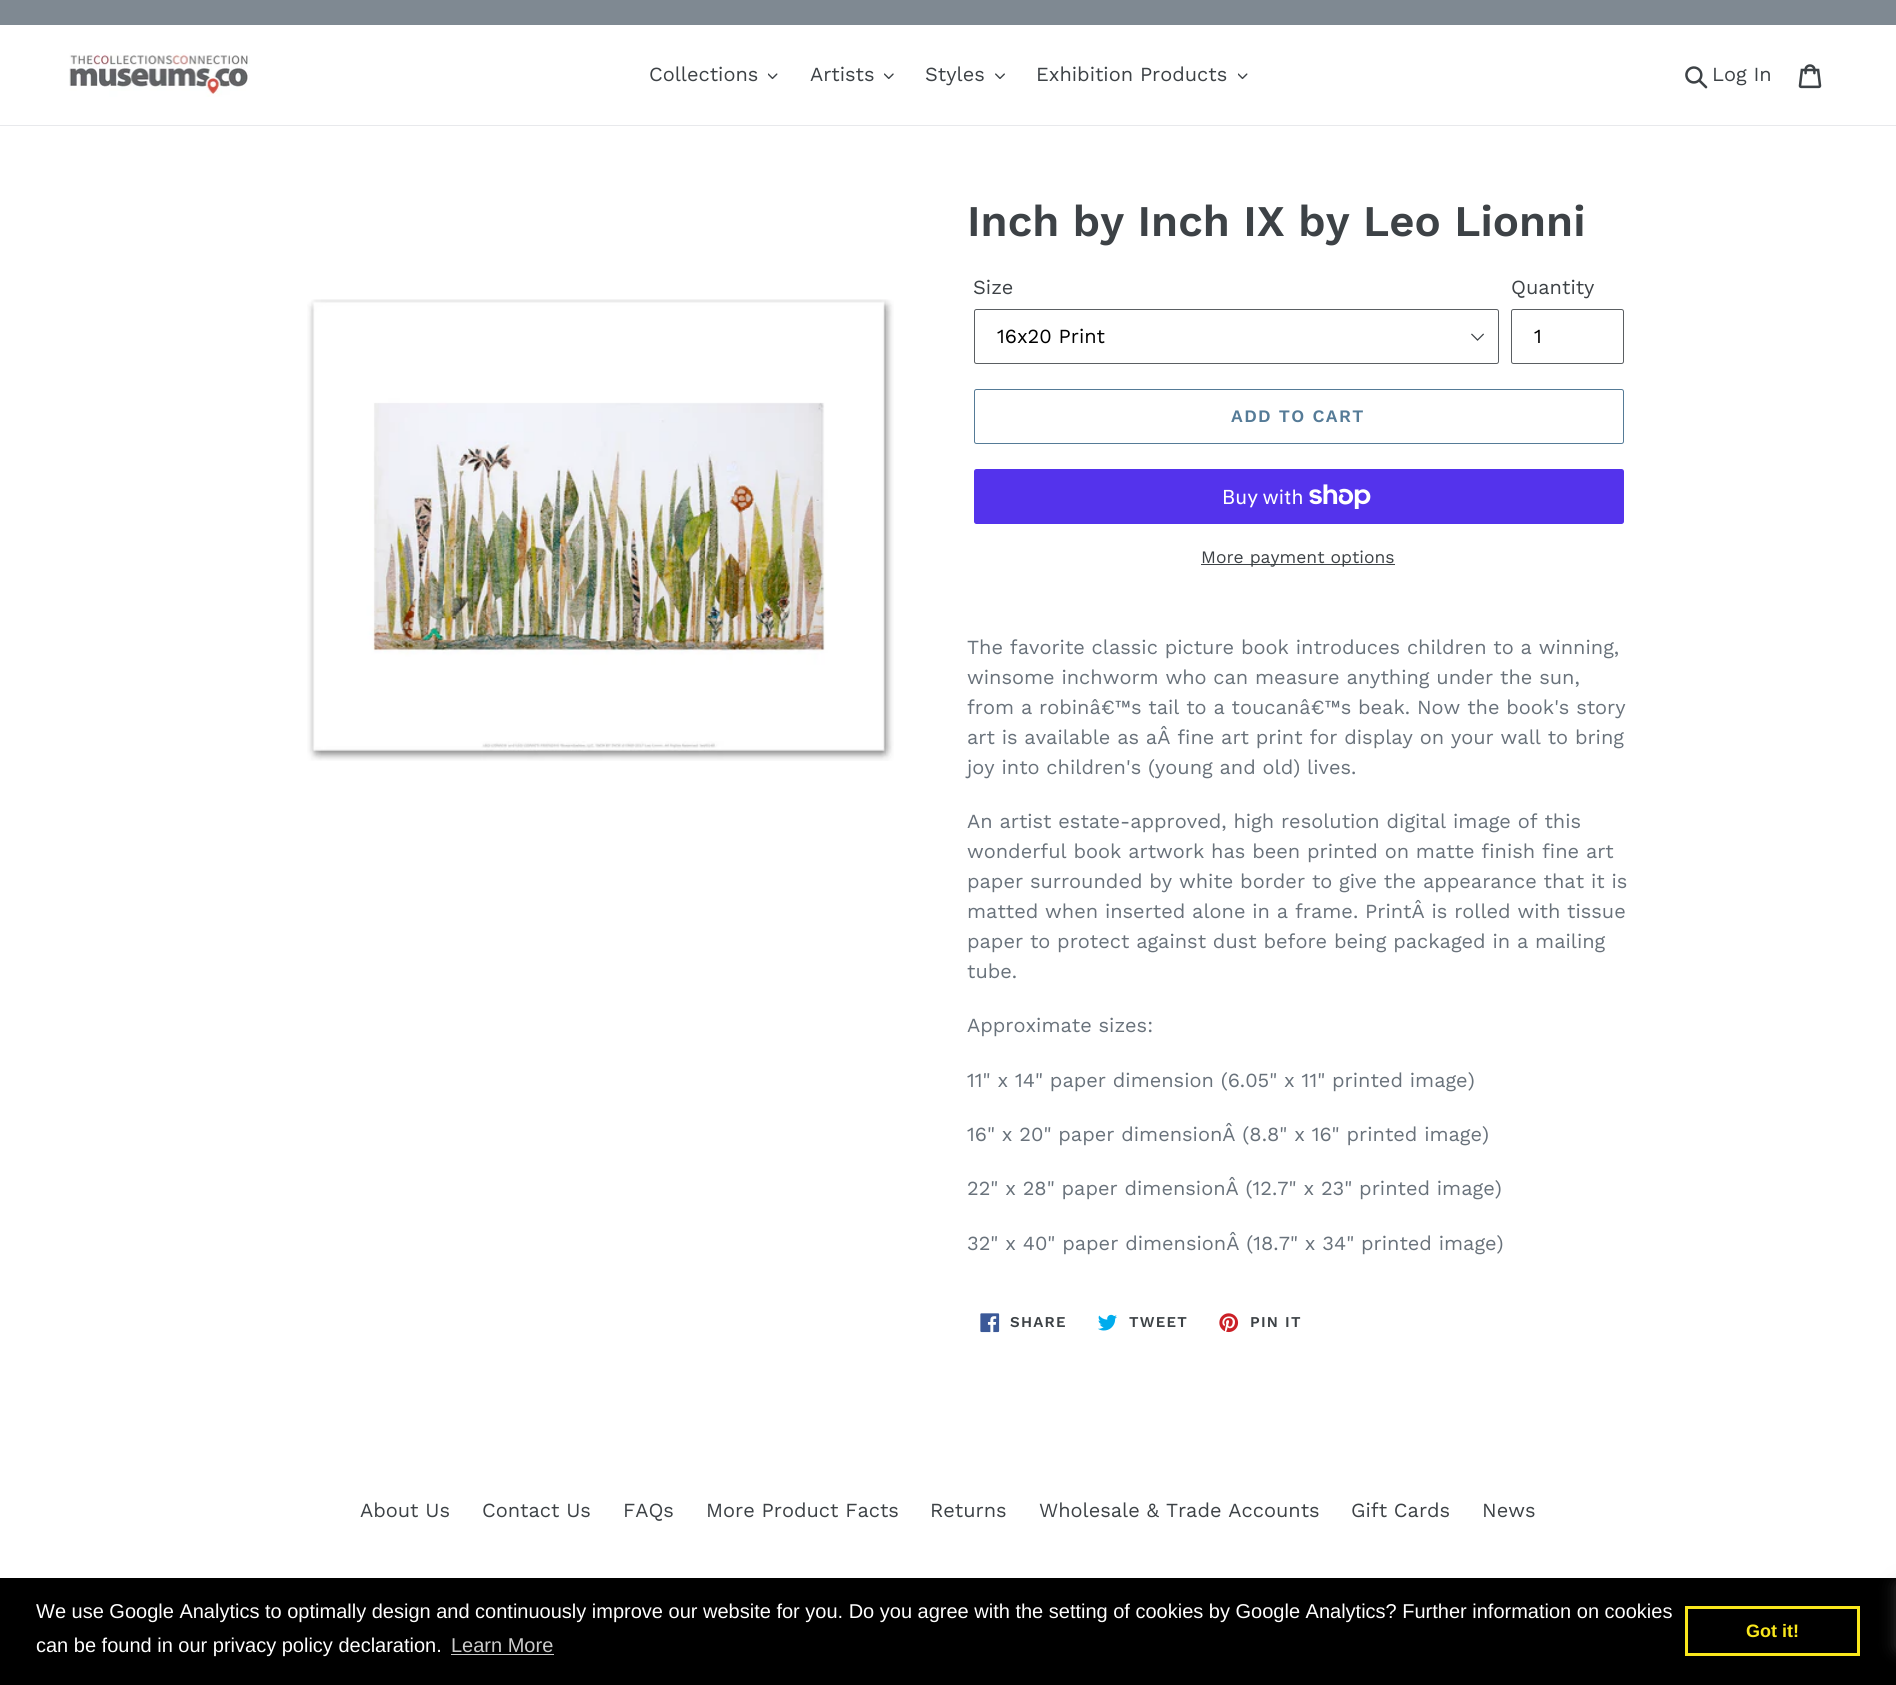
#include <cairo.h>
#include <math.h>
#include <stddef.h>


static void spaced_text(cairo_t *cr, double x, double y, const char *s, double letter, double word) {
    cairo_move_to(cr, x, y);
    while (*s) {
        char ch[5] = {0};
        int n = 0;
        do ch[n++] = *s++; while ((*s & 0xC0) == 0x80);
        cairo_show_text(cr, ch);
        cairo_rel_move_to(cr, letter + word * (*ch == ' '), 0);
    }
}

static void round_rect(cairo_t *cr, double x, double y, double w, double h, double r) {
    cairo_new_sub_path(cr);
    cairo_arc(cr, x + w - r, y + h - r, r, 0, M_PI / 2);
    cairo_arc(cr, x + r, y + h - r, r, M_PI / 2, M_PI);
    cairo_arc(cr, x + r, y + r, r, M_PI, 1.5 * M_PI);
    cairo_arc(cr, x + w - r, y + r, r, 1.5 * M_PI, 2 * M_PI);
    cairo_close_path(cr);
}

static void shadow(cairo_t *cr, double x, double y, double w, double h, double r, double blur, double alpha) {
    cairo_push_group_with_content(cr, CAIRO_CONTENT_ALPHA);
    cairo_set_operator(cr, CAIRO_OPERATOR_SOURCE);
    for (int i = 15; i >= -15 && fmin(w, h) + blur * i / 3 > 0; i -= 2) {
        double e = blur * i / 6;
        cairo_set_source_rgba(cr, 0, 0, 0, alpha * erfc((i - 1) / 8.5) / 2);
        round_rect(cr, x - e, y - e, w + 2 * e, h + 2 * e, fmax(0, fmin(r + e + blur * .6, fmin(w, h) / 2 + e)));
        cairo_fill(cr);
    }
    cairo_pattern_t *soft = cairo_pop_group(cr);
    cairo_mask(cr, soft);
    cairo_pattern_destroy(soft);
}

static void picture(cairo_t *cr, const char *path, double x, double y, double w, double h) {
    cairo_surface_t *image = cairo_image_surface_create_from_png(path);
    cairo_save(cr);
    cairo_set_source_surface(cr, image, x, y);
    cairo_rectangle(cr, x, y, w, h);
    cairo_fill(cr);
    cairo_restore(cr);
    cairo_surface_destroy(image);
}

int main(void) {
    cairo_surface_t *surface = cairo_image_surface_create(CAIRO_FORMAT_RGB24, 1896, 1685);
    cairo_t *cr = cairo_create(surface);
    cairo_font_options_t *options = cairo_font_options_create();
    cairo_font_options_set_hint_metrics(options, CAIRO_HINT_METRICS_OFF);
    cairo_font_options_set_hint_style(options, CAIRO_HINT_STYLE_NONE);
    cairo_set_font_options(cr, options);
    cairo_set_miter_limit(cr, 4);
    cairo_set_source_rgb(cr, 1, 1, 1);
    cairo_paint(cr);
    cairo_set_source_rgb(cr, 0.498, 0.537, 0.573);
    cairo_rectangle(cr, 0, 0, 1896, 25);
    cairo_fill(cr);
    cairo_set_source_rgb(cr, 0.91, 0.914, 0.922);
    cairo_rectangle(cr, 0, 125, 1896, 1);
    cairo_fill(cr);
    picture(cr, "img1.png", 69, 53, 181, 44);
    cairo_select_font_face(cr, "Work Sans", CAIRO_FONT_SLANT_NORMAL, CAIRO_FONT_WEIGHT_NORMAL);
    cairo_set_font_size(cr, 20);
    cairo_set_source_rgb(cr, 0.239, 0.259, 0.275);
    cairo_move_to(cr, 649, 81);
    cairo_show_text(cr, "Collections");
    picture(cr, "img2.png", 768, 73, 10, 7);
    cairo_move_to(cr, 810, 81);
    cairo_show_text(cr, "Artists");
    picture(cr, "img3.png", 884, 73, 10, 7);
    cairo_move_to(cr, 925, 81);
    cairo_show_text(cr, "Styles");
    picture(cr, "img4.png", 995, 73, 10, 6);
    cairo_move_to(cr, 1036, 81);
    cairo_show_text(cr, "Exhibition Products");
    picture(cr, "img2.png", 1238, 73, 10, 7);
    picture(cr, "img5.png", 1685, 66, 23, 23);
    cairo_move_to(cr, 1712, 81);
    cairo_show_text(cr, "Log In");
    picture(cr, "img6.png", 1798, 64, 24, 25);
    picture(cr, "img7.png", 307, 299, 587, 462);
    cairo_select_font_face(cr, "Work Sans SemiBold", CAIRO_FONT_SLANT_NORMAL, CAIRO_FONT_WEIGHT_NORMAL);
    cairo_set_font_size(cr, 43.75);
    cairo_move_to(cr, 967, 236);
    cairo_show_text(cr, "Inch by Inch IX by Leo Lionni");
    cairo_select_font_face(cr, "Work Sans", CAIRO_FONT_SLANT_NORMAL, CAIRO_FONT_WEIGHT_NORMAL);
    cairo_set_font_size(cr, 20);
    cairo_move_to(cr, 973, 294);
    cairo_show_text(cr, "Size");
    picture(cr, "img8.png", 1471, 333, 13, 8);
    round_rect(cr, 974.5, 309.5, 524, 54, 2);
    cairo_set_source_rgb(cr, 0.353, 0.369, 0.384);
    cairo_set_line_width(cr, 1);
    cairo_stroke(cr);
    cairo_set_source_rgb(cr, 0, 0, 0);
    cairo_move_to(cr, 997, 343);
    cairo_show_text(cr, "16x20 Print");
    cairo_set_source_rgb(cr, 0.239, 0.259, 0.275);
    cairo_move_to(cr, 1511, 294);
    cairo_show_text(cr, "Quantity");
    round_rect(cr, 1511.5, 309.5, 112, 54, 2);
    cairo_set_source_rgb(cr, 0.353, 0.369, 0.384);
    cairo_stroke(cr);
    cairo_set_source_rgb(cr, 0, 0, 0);
    cairo_move_to(cr, 1534, 343);
    cairo_show_text(cr, "1");
    round_rect(cr, 974.5, 389.5, 649, 54, 2);
    cairo_set_source_rgb(cr, 0.333, 0.482, 0.592);
    cairo_stroke(cr);
    cairo_select_font_face(cr, "Work Sans SemiBold", CAIRO_FONT_SLANT_NORMAL, CAIRO_FONT_WEIGHT_NORMAL);
    cairo_set_font_size(cr, 17.5);
    spaced_text(cr, 1231, 422, "ADD TO CART", 1.4, 0);
    cairo_set_source_rgb(cr, 0.329, 0.2, 0.922);
    round_rect(cr, 974, 469, 650, 55, 2.5);
    cairo_fill(cr);
    cairo_select_font_face(cr, "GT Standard", CAIRO_FONT_SLANT_NORMAL, CAIRO_FONT_WEIGHT_NORMAL);
    cairo_set_font_size(cr, 20);
    cairo_set_source_rgb(cr, 1, 1, 1);
    cairo_move_to(cr, 1222, 504);
    cairo_show_text(cr, "Buy with");
    picture(cr, "img9.png", 1309, 484, 62, 25);
    cairo_set_source_rgb(cr, 0.239, 0.259, 0.275);
    cairo_rectangle(cr, 1201, 564, 194, 1);
    cairo_fill(cr);
    cairo_select_font_face(cr, "Work Sans", CAIRO_FONT_SLANT_NORMAL, CAIRO_FONT_WEIGHT_NORMAL);
    cairo_set_font_size(cr, 17.5);
    cairo_move_to(cr, 1201, 563);
    cairo_show_text(cr, "More payment options");
    cairo_set_font_size(cr, 20);
    cairo_set_source_rgb(cr, 0.412, 0.447, 0.482);
    cairo_move_to(cr, 967, 654);
    cairo_show_text(cr, "The favorite classic picture book introduces children to a winning,");
    cairo_move_to(cr, 967, 684);
    cairo_show_text(cr, "winsome inchworm who can measure anything under the sun,");
    cairo_move_to(cr, 967, 714);
    cairo_show_text(cr, "from a robinâ€™s tail to a toucanâ€™s beak. Now the book's story");
    cairo_move_to(cr, 967, 744);
    cairo_show_text(cr, "art is available as aÂ fine art print for display on your wall to bring");
    cairo_move_to(cr, 967, 774);
    cairo_show_text(cr, "joy into children's (young and old) lives.");
    cairo_move_to(cr, 967, 828);
    cairo_show_text(cr, "An artist estate-approved, high resolution digital image of this");
    cairo_move_to(cr, 967, 858);
    cairo_show_text(cr, "wonderful book artwork has been printed on matte finish fine art");
    cairo_move_to(cr, 967, 888);
    cairo_show_text(cr, "paper surrounded by white border to give the appearance that it is");
    cairo_move_to(cr, 967, 918);
    cairo_show_text(cr, "matted when inserted alone in a frame. PrintÂ is rolled with tissue");
    cairo_move_to(cr, 967, 948);
    cairo_show_text(cr, "paper to protect against dust before being packaged in a mailing");
    cairo_move_to(cr, 967, 978);
    cairo_show_text(cr, "tube.");
    cairo_move_to(cr, 967, 1032);
    cairo_show_text(cr, "Approximate sizes:");
    cairo_move_to(cr, 967, 1087);
    cairo_show_text(cr, "11\" x 14\" paper dimension (6.05\" x 11\" printed image)");
    cairo_move_to(cr, 967, 1141);
    cairo_show_text(cr, "16\" x 20\" paper dimensionÂ (8.8\" x 16\" printed image)");
    cairo_move_to(cr, 967, 1195);
    cairo_show_text(cr, "22\" x 28\" paper dimensionÂ (12.7\" x 23\" printed image)");
    cairo_move_to(cr, 967, 1250);
    cairo_show_text(cr, "32\" x 40\" paper dimensionÂ (18.7\" x 34\" printed image)");
    picture(cr, "img10.png", 980, 1313, 20, 20);
    cairo_select_font_face(cr, "Work Sans SemiBold", CAIRO_FONT_SLANT_NORMAL, CAIRO_FONT_WEIGHT_NORMAL);
    cairo_set_font_size(cr, 15);
    cairo_set_source_rgb(cr, 0.239, 0.259, 0.275);
    spaced_text(cr, 1010, 1327, "SHARE", 1.25, 0);
    picture(cr, "img11.png", 1098, 1314, 19, 17);
    spaced_text(cr, 1129, 1327, "TWEET", 1.25, 0);
    picture(cr, "img12.png", 1219, 1313, 20, 20);
    spaced_text(cr, 1250, 1327, "PIN IT", 1.25, 0);
    cairo_select_font_face(cr, "Work Sans", CAIRO_FONT_SLANT_NORMAL, CAIRO_FONT_WEIGHT_NORMAL);
    cairo_set_font_size(cr, 20);
    cairo_move_to(cr, 360, 1517);
    cairo_show_text(cr, "About Us");
    cairo_move_to(cr, 482, 1517);
    cairo_show_text(cr, "Contact Us");
    cairo_move_to(cr, 623, 1517);
    cairo_show_text(cr, "FAQs");
    cairo_move_to(cr, 706, 1517);
    cairo_show_text(cr, "More Product Facts");
    cairo_move_to(cr, 930, 1517);
    cairo_show_text(cr, "Returns");
    cairo_move_to(cr, 1039, 1517);
    cairo_show_text(cr, "Wholesale & Trade Accounts");
    cairo_move_to(cr, 1351, 1517);
    cairo_show_text(cr, "Gift Cards");
    cairo_move_to(cr, 1482, 1517);
    cairo_show_text(cr, "News");
    cairo_set_source_rgb(cr, 0, 0, 0);
    cairo_rectangle(cr, 0, 1578, 1896, 107);
    cairo_fill(cr);
    cairo_select_font_face(cr, "Liberation Sans", CAIRO_FONT_SLANT_NORMAL, CAIRO_FONT_WEIGHT_NORMAL);
    cairo_set_source_rgb(cr, 1, 1, 1);
    cairo_move_to(cr, 36, 1618);
    cairo_show_text(cr, "We use Google Analytics to optimally design and continuously improve our website for you. Do you agree with the setting of cookies by Google Analytics? Further information on cookies");
    cairo_move_to(cr, 36, 1652);
    cairo_show_text(cr, "can be found in our privacy policy declaration.");
    cairo_set_source_rgb(cr, 0.8, 0.8, 0.8);
    cairo_move_to(cr, 451, 1652);
    cairo_show_text(cr, "Learn More");
    cairo_rectangle(cr, 451, 1654, 103, 1);
    cairo_fill(cr);
    cairo_rectangle(cr, 1686.5, 1607.5, 172, 47);
    cairo_set_source_rgb(cr, 0.973, 0.906, 0.11);
    cairo_set_line_width(cr, 3);
    cairo_stroke(cr);
    cairo_select_font_face(cr, "Liberation Sans", CAIRO_FONT_SLANT_NORMAL, CAIRO_FONT_WEIGHT_BOLD);
    cairo_set_font_size(cr, 18);
    cairo_move_to(cr, 1746, 1637);
    cairo_show_text(cr, "Got it!");
    cairo_set_source_rgb(cr, 0.459, 0.459, 0.459);
    shadow(cr, 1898, 1585, 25, 63, 0, 9, 0.5);
    cairo_surface_write_to_png(surface, "page.png");
    cairo_font_options_destroy(options);
    cairo_destroy(cr);
    cairo_surface_destroy(surface);
    return 0;
}
